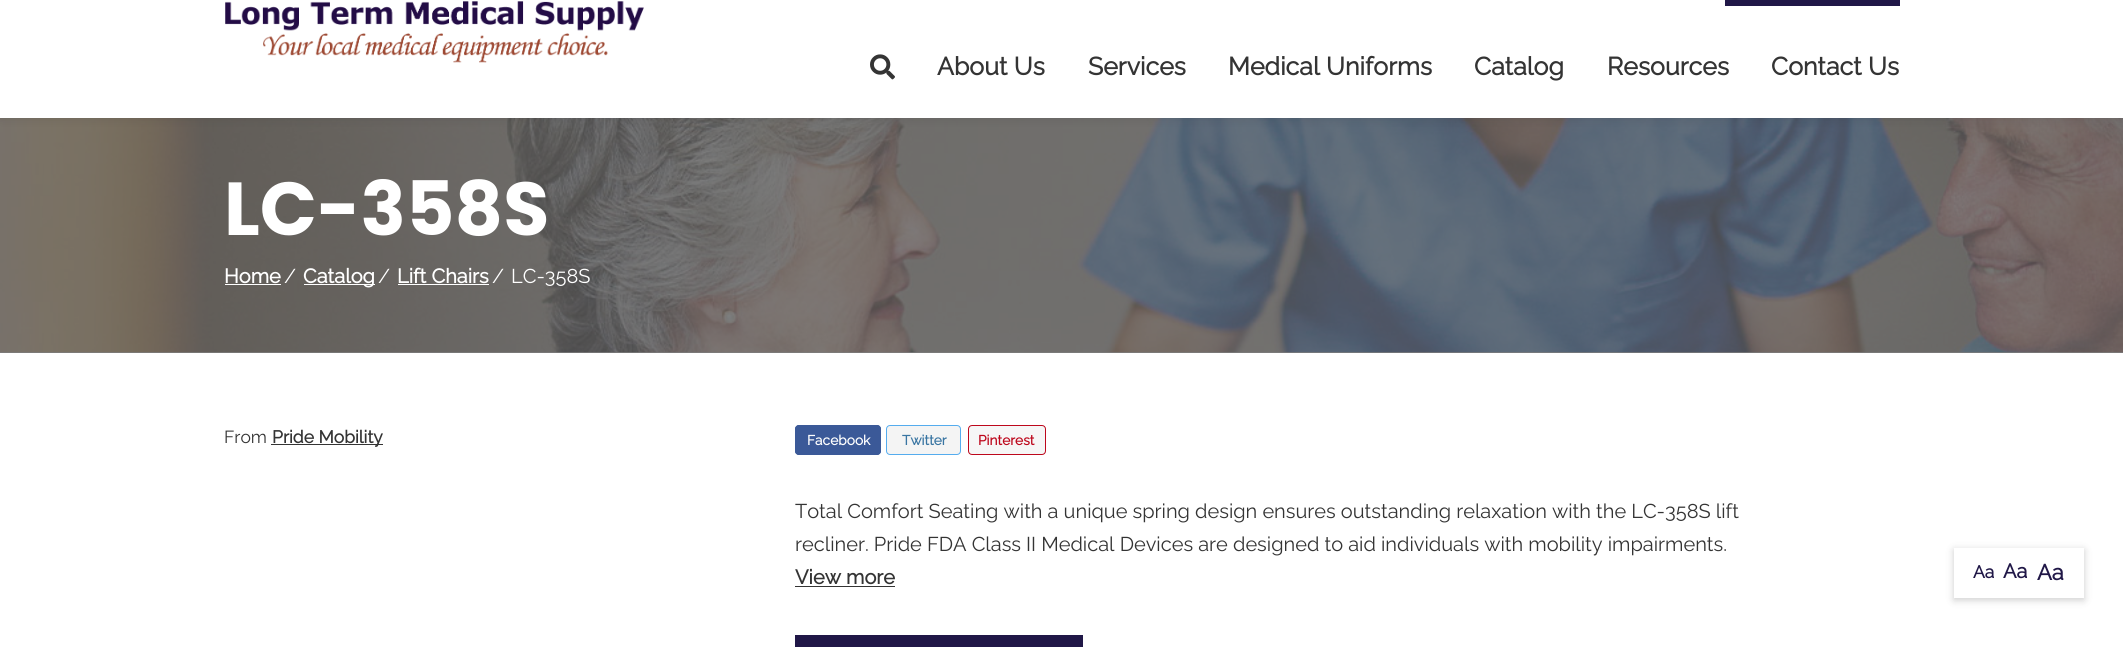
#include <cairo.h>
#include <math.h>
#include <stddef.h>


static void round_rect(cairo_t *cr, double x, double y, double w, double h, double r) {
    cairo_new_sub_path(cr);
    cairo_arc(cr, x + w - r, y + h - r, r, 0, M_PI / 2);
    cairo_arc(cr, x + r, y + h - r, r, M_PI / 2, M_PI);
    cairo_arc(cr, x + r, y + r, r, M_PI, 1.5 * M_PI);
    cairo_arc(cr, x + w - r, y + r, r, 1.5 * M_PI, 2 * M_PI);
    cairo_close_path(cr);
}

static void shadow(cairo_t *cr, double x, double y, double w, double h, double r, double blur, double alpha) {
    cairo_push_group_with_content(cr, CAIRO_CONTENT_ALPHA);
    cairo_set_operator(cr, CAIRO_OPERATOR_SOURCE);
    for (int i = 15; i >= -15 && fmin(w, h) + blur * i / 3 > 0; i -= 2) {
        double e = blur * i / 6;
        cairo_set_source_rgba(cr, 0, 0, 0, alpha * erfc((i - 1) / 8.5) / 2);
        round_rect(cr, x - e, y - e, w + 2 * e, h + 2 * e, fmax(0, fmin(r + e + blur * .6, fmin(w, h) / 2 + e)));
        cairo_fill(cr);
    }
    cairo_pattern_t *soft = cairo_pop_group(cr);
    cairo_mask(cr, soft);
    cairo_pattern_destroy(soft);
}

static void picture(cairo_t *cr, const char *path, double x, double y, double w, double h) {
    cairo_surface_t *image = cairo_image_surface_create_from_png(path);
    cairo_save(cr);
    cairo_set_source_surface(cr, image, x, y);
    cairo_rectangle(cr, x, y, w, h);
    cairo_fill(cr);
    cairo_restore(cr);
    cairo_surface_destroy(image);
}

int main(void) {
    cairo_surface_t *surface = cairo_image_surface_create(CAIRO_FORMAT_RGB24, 2123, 647);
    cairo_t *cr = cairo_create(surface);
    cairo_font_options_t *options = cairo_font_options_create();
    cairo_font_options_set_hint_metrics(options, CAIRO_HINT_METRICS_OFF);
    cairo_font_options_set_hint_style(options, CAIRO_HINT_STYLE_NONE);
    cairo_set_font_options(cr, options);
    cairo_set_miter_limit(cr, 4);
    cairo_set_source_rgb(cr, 1, 1, 1);
    cairo_paint(cr);
    cairo_set_source_rgb(cr, 0.49, 0.49, 0.49);
    cairo_rectangle(cr, 0, 352, 2123, 1);
    cairo_fill(cr);
    picture(cr, "img3.png", 0, 118, 2123, 235);
    cairo_set_source_rgb(cr, 0, 0, 0);
    shadow(cr, 0, -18, 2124, 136, 0, 6, 0.1);
    cairo_set_source_rgb(cr, 1, 1, 1);
    cairo_rectangle(cr, 0, 0, 2123, 118);
    cairo_fill(cr);
    picture(cr, "img1.png", 225, 1, 419, 62);
    cairo_set_source_rgb(cr, 0.125, 0.09, 0.278);
    cairo_rectangle(cr, 1725, 0, 175, 6);
    cairo_fill(cr);
    picture(cr, "img2.png", 870, 54, 25, 26);
    cairo_select_font_face(cr, "Raleway", CAIRO_FONT_SLANT_NORMAL, CAIRO_FONT_WEIGHT_BOLD);
    cairo_set_font_size(cr, 25);
    cairo_set_source_rgb(cr, 0.204, 0.204, 0.204);
    cairo_move_to(cr, 937, 75);
    cairo_show_text(cr, "About Us");
    cairo_move_to(cr, 1088, 75);
    cairo_show_text(cr, "Services");
    cairo_move_to(cr, 1228, 75);
    cairo_show_text(cr, "Medical Uniforms");
    cairo_move_to(cr, 1474, 75);
    cairo_show_text(cr, "Catalog");
    cairo_move_to(cr, 1607, 75);
    cairo_show_text(cr, "Resources");
    cairo_move_to(cr, 1771, 75);
    cairo_show_text(cr, "Contact Us");
    cairo_select_font_face(cr, "Poppins", CAIRO_FONT_SLANT_NORMAL, CAIRO_FONT_WEIGHT_BOLD);
    cairo_set_font_size(cr, 75);
    cairo_set_source_rgb(cr, 1, 1, 1);
    cairo_move_to(cr, 224, 235);
    cairo_show_text(cr, "LC-358S");
    cairo_select_font_face(cr, "Raleway", CAIRO_FONT_SLANT_NORMAL, CAIRO_FONT_WEIGHT_BOLD);
    cairo_set_font_size(cr, 20);
    cairo_move_to(cr, 224, 283);
    cairo_show_text(cr, "Home");
    cairo_rectangle(cr, 225, 284, 56, 1);
    cairo_fill(cr);
    cairo_select_font_face(cr, "Raleway Thin", CAIRO_FONT_SLANT_NORMAL, CAIRO_FONT_WEIGHT_NORMAL);
    cairo_move_to(cr, 284, 283);
    cairo_show_text(cr, "/");
    cairo_rectangle(cr, 304, 284, 71, 1);
    cairo_fill(cr);
    cairo_select_font_face(cr, "Raleway", CAIRO_FONT_SLANT_NORMAL, CAIRO_FONT_WEIGHT_BOLD);
    cairo_move_to(cr, 303, 283);
    cairo_show_text(cr, "Catalog");
    cairo_select_font_face(cr, "Raleway Thin", CAIRO_FONT_SLANT_NORMAL, CAIRO_FONT_WEIGHT_NORMAL);
    cairo_move_to(cr, 378, 283);
    cairo_show_text(cr, "/");
    cairo_select_font_face(cr, "Raleway", CAIRO_FONT_SLANT_NORMAL, CAIRO_FONT_WEIGHT_BOLD);
    cairo_move_to(cr, 397, 283);
    cairo_show_text(cr, "Lift Chairs");
    cairo_rectangle(cr, 398, 284, 91, 1);
    cairo_fill(cr);
    cairo_select_font_face(cr, "Raleway Thin", CAIRO_FONT_SLANT_NORMAL, CAIRO_FONT_WEIGHT_NORMAL);
    cairo_move_to(cr, 492, 283);
    cairo_show_text(cr, "/");
    cairo_move_to(cr, 511, 283);
    cairo_show_text(cr, "LC-358S");
    cairo_set_font_size(cr, 17.5);
    cairo_set_source_rgb(cr, 0.204, 0.204, 0.204);
    cairo_move_to(cr, 224, 443);
    cairo_show_text(cr, "From");
    cairo_rectangle(cr, 271, 444, 112, 1);
    cairo_fill(cr);
    cairo_select_font_face(cr, "Raleway", CAIRO_FONT_SLANT_NORMAL, CAIRO_FONT_WEIGHT_BOLD);
    cairo_move_to(cr, 272, 443);
    cairo_show_text(cr, "Pride Mobility");
    cairo_set_source_rgb(cr, 0.231, 0.349, 0.596);
    round_rect(cr, 795, 425, 86, 30, 4);
    cairo_fill(cr);
    cairo_new_path(cr);
    cairo_move_to(cr, 800, 428);
    cairo_line_to(cr, 880, 428);
    cairo_curve_to(cr, 880, 427, 879, 426, 878, 426);
    cairo_line_to(cr, 798, 426);
    cairo_curve_to(cr, 797, 426, 796, 427, 796, 428);
    cairo_line_to(cr, 796, 452);
    cairo_curve_to(cr, 796, 453, 797, 454, 798, 454);
    cairo_line_to(cr, 798, 428);
    cairo_close_path(cr);
    cairo_fill(cr);
    round_rect(cr, 795.5, 425.5, 85, 29, 3.5);
    cairo_set_line_width(cr, 1);
    cairo_stroke(cr);
    cairo_set_font_size(cr, 13.75);
    cairo_set_source_rgb(cr, 1, 1, 1);
    cairo_move_to(cr, 807, 445);
    cairo_show_text(cr, "Facebook");
    cairo_set_source_rgb(cr, 0.957, 0.957, 0.957);
    round_rect(cr, 886.5, 425.5, 74, 29, 3.5);
    cairo_fill_preserve(cr);
    cairo_set_source_rgb(cr, 0.333, 0.675, 0.933);
    cairo_stroke(cr);
    cairo_set_source_rgb(cr, 0.224, 0.459, 0.635);
    cairo_move_to(cr, 902, 445);
    cairo_show_text(cr, "Twitter");
    cairo_set_source_rgb(cr, 0.961, 0.961, 0.961);
    round_rect(cr, 968.5, 425.5, 77, 29, 3.5);
    cairo_fill_preserve(cr);
    cairo_set_source_rgb(cr, 0.741, 0.031, 0.11);
    cairo_stroke(cr);
    cairo_move_to(cr, 978, 445);
    cairo_show_text(cr, "Pinterest");
    cairo_select_font_face(cr, "Raleway Thin", CAIRO_FONT_SLANT_NORMAL, CAIRO_FONT_WEIGHT_NORMAL);
    cairo_set_font_size(cr, 20);
    cairo_set_source_rgb(cr, 0.204, 0.204, 0.204);
    cairo_move_to(cr, 795, 518);
    cairo_show_text(cr, "Total Comfort Seating with a unique spring design ensures outstanding relaxation with the LC-358S lift");
    cairo_move_to(cr, 795, 551);
    cairo_show_text(cr, "recliner. Pride FDA Class II Medical Devices are designed to aid individuals with mobility impairments.");
    cairo_select_font_face(cr, "Raleway", CAIRO_FONT_SLANT_NORMAL, CAIRO_FONT_WEIGHT_BOLD);
    cairo_move_to(cr, 795, 584);
    cairo_show_text(cr, "View more");
    cairo_rectangle(cr, 795, 586, 100, 1);
    cairo_fill(cr);
    cairo_set_source_rgb(cr, 0.125, 0.09, 0.278);
    cairo_rectangle(cr, 795, 635, 288, 12);
    cairo_fill(cr);
    cairo_set_source_rgb(cr, 0, 0, 0);
    shadow(cr, 1954, 550, 130, 50, 0, 4, 0.2);
    cairo_set_source_rgb(cr, 1, 1, 1);
    cairo_rectangle(cr, 1954, 548, 130, 50);
    cairo_fill(cr);
    cairo_set_font_size(cr, 17.5);
    cairo_set_source_rgb(cr, 0.125, 0.09, 0.278);
    cairo_move_to(cr, 1973, 578);
    cairo_show_text(cr, "Aa");
    cairo_set_font_size(cr, 20);
    cairo_move_to(cr, 2003, 578);
    cairo_show_text(cr, "Aa");
    cairo_set_font_size(cr, 22);
    cairo_move_to(cr, 2037, 580);
    cairo_show_text(cr, "Aa");
    cairo_surface_write_to_png(surface, "page.png");
    cairo_font_options_destroy(options);
    cairo_destroy(cr);
    cairo_surface_destroy(surface);
    return 0;
}
